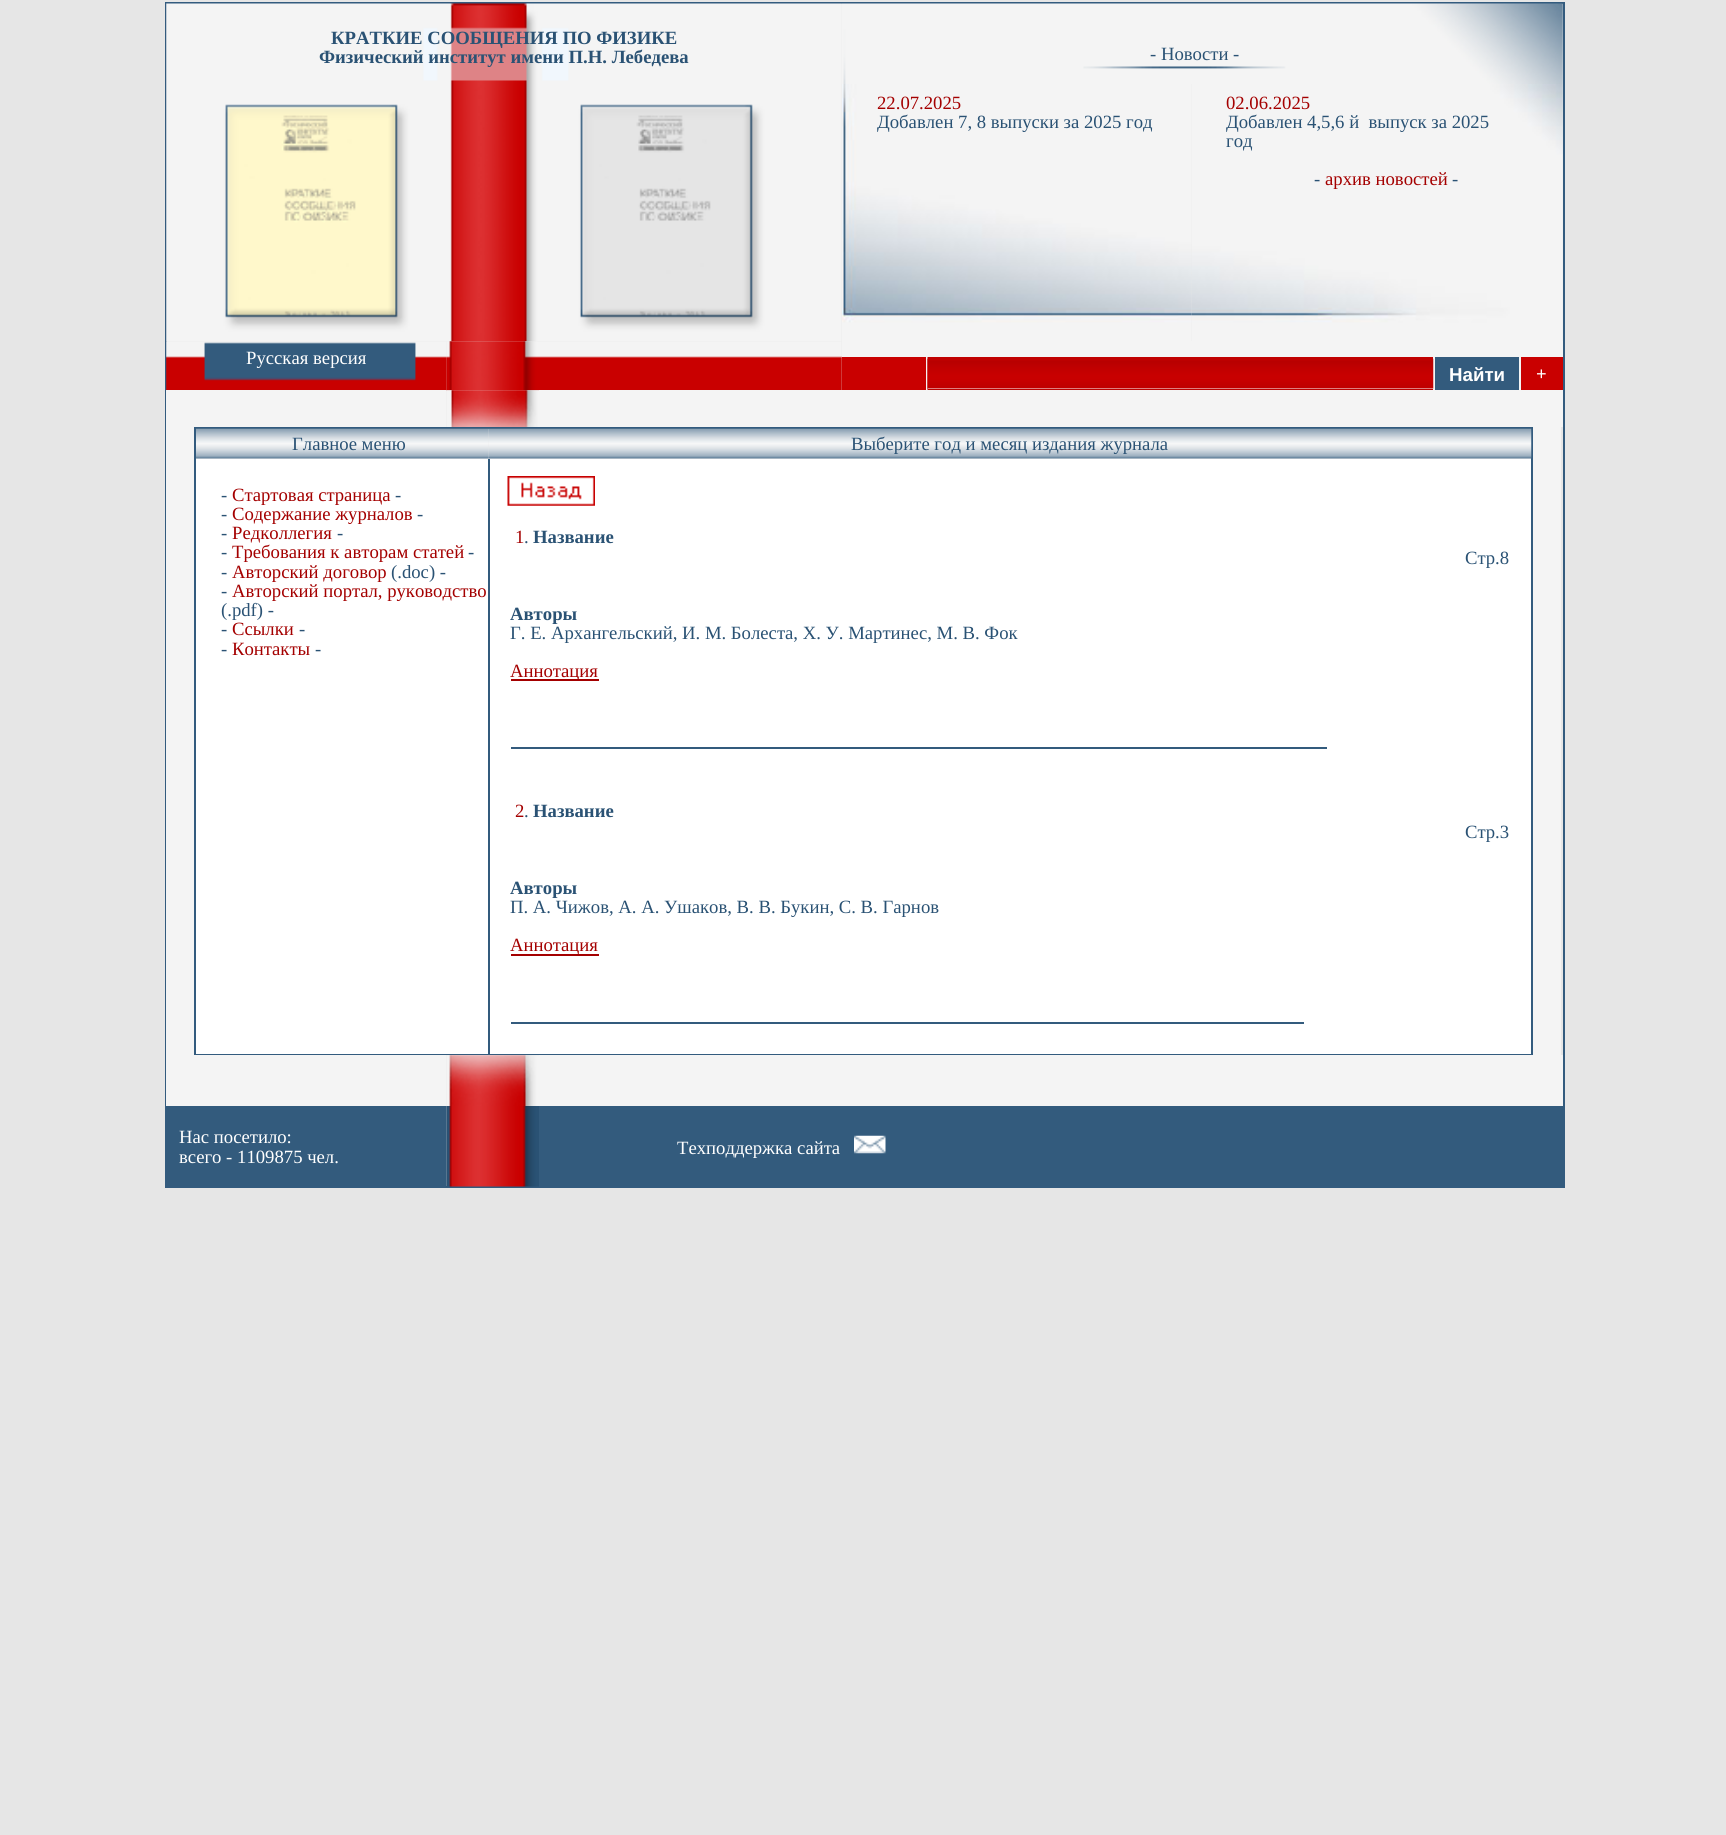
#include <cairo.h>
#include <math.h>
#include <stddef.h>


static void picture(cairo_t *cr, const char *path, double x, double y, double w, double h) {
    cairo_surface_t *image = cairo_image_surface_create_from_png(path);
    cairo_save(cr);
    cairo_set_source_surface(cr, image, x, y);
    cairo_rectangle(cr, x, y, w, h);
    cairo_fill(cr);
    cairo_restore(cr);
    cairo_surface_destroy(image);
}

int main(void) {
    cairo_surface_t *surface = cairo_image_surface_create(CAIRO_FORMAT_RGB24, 1726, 1835);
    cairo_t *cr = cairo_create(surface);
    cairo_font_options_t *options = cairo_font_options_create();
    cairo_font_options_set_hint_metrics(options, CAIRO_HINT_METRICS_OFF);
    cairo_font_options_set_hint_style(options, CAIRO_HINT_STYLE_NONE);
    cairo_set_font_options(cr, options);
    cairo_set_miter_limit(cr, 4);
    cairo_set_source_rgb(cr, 0.902, 0.902, 0.902);
    cairo_paint(cr);
    cairo_rectangle(cr, 166, 3, 1398, 1184);
    cairo_set_source_rgb(cr, 0.2, 0.357, 0.494);
    cairo_stroke(cr);
    picture(cr, "img1.png", 166, 3, 676, 81);
    cairo_select_font_face(cr, "Liberation Serif", CAIRO_FONT_SLANT_NORMAL, CAIRO_FONT_WEIGHT_BOLD);
    cairo_set_font_size(cr, 18.7);
    cairo_set_source_rgb(cr, 0.165, 0.322, 0.455);
    cairo_move_to(cr, 331, 44);
    cairo_show_text(cr, "КРАТКИЕ СООБЩЕНИЯ ПО ФИЗИКЕ");
    cairo_move_to(cr, 319, 63);
    cairo_show_text(cr, "Физический институт имени П.Н. Лебедева");
    picture(cr, "img2.png", 841, 3, 722, 81);
    cairo_select_font_face(cr, "Liberation Serif", CAIRO_FONT_SLANT_NORMAL, CAIRO_FONT_WEIGHT_NORMAL);
    cairo_move_to(cr, 1150, 60);
    cairo_show_text(cr, "- Новости -");
    picture(cr, "img3.png", 166, 84, 676, 258);
    picture(cr, "img4.png", 842, 84, 350, 257);
    cairo_set_source_rgb(cr, 0.643, 0, 0);
    cairo_move_to(cr, 877, 109);
    cairo_show_text(cr, "22.07.2025");
    cairo_set_source_rgb(cr, 0.165, 0.322, 0.455);
    cairo_move_to(cr, 877, 128);
    cairo_show_text(cr, "Добавлен 7, 8 выпуски за 2025 год");
    picture(cr, "img5.png", 1191, 84, 372, 257);
    cairo_set_source_rgb(cr, 0.643, 0, 0);
    cairo_move_to(cr, 1226, 109);
    cairo_show_text(cr, "02.06.2025");
    cairo_set_source_rgb(cr, 0.165, 0.322, 0.455);
    cairo_move_to(cr, 1226, 128);
    cairo_show_text(cr, "Добавлен 4,5,6 й  выпуск за 2025");
    cairo_move_to(cr, 1226, 147);
    cairo_show_text(cr, "год");
    cairo_move_to(cr, 1314, 185);
    cairo_show_text(cr, "-");
    cairo_set_source_rgb(cr, 0.643, 0, 0);
    cairo_move_to(cr, 1325, 185);
    cairo_show_text(cr, "архив новостей");
    cairo_set_source_rgb(cr, 0.165, 0.322, 0.455);
    cairo_move_to(cr, 1452, 185);
    cairo_show_text(cr, "-");
    picture(cr, "img6.png", 166, 341, 281, 50);
    cairo_set_source_rgb(cr, 1, 1, 1);
    cairo_move_to(cr, 246, 364);
    cairo_show_text(cr, "Русская версия");
    picture(cr, "img7.png", 446, 341, 93, 50);
    picture(cr, "img8.png", 539, 341, 303, 49);
    cairo_set_source_rgb(cr, 0.957, 0.957, 0.957);
    cairo_rectangle(cr, 842, 341, 721, 16);
    cairo_fill(cr);
    cairo_set_source_rgb(cr, 0.788, 0, 0);
    cairo_rectangle(cr, 842, 357, 84, 33);
    cairo_fill(cr);
    cairo_set_source_rgb(cr, 0.957, 0.957, 0.957);
    cairo_rectangle(cr, 926, 357, 2, 33);
    cairo_fill(cr);
    picture(cr, "img9.png", 927, 357, 506, 33);
    cairo_set_source_rgb(cr, 1, 1, 1);
    cairo_rectangle(cr, 928, 388, 505, 1);
    cairo_fill(cr);
    cairo_set_source_rgb(cr, 0.957, 0.957, 0.957);
    cairo_rectangle(cr, 1433, 357, 2, 33);
    cairo_fill(cr);
    picture(cr, "img10.png", 927, 358, 507, 31);
    cairo_set_source_rgb(cr, 0.2, 0.357, 0.49);
    cairo_rectangle(cr, 1435, 357, 84, 33);
    cairo_fill(cr);
    cairo_select_font_face(cr, "Liberation Sans", CAIRO_FONT_SLANT_NORMAL, CAIRO_FONT_WEIGHT_BOLD);
    cairo_set_source_rgb(cr, 1, 1, 1);
    cairo_move_to(cr, 1449, 381);
    cairo_show_text(cr, "Найти");
    cairo_set_source_rgb(cr, 0.957, 0.957, 0.957);
    cairo_rectangle(cr, 1519, 357, 2, 33);
    cairo_fill(cr);
    cairo_set_source_rgb(cr, 0.788, 0, 0);
    cairo_rectangle(cr, 1521, 357, 42, 33);
    cairo_fill(cr);
    cairo_select_font_face(cr, "Liberation Serif", CAIRO_FONT_SLANT_NORMAL, CAIRO_FONT_WEIGHT_BOLD);
    cairo_set_source_rgb(cr, 1, 1, 1);
    cairo_move_to(cr, 1536, 380);
    cairo_show_text(cr, "+");
    cairo_set_source_rgb(cr, 0.957, 0.957, 0.957);
    cairo_rectangle(cr, 166, 390, 280, 37);
    cairo_fill(cr);
    picture(cr, "img11.png", 446, 390, 93, 37);
    cairo_rectangle(cr, 539, 390, 1024, 37);
    cairo_fill(cr);
    cairo_rectangle(cr, 166, 427, 28, 628);
    cairo_fill(cr);
    cairo_rectangle(cr, 195, 428, 1337, 626);
    cairo_set_source_rgb(cr, 0.2, 0.357, 0.494);
    cairo_stroke(cr);
    picture(cr, "img12.png", 196, 428, 293, 31);
    cairo_select_font_face(cr, "Liberation Serif", CAIRO_FONT_SLANT_NORMAL, CAIRO_FONT_WEIGHT_NORMAL);
    cairo_set_source_rgb(cr, 0.165, 0.322, 0.455);
    cairo_move_to(cr, 292, 450);
    cairo_show_text(cr, "Главное меню");
    picture(cr, "img13.png", 488, 428, 1044, 31);
    cairo_move_to(cr, 851, 450);
    cairo_show_text(cr, "Выберите год и месяц издания журнала");
    cairo_set_source_rgb(cr, 1, 1, 1);
    cairo_rectangle(cr, 196, 459, 292, 595);
    cairo_fill(cr);
    cairo_set_source_rgb(cr, 0.165, 0.322, 0.455);
    cairo_move_to(cr, 221, 501);
    cairo_show_text(cr, "-");
    cairo_set_source_rgb(cr, 0.643, 0, 0);
    cairo_move_to(cr, 232, 501);
    cairo_show_text(cr, "Стартовая страница");
    cairo_set_source_rgb(cr, 0.165, 0.322, 0.455);
    cairo_move_to(cr, 395, 501);
    cairo_show_text(cr, "-");
    cairo_move_to(cr, 221, 520);
    cairo_show_text(cr, "-");
    cairo_set_source_rgb(cr, 0.643, 0, 0);
    cairo_move_to(cr, 232, 520);
    cairo_show_text(cr, "Содержание журналов");
    cairo_set_source_rgb(cr, 0.165, 0.322, 0.455);
    cairo_move_to(cr, 417, 520);
    cairo_show_text(cr, "-");
    cairo_move_to(cr, 221, 539);
    cairo_show_text(cr, "-");
    cairo_set_source_rgb(cr, 0.643, 0, 0);
    cairo_move_to(cr, 232, 539);
    cairo_show_text(cr, "Редколлегия");
    cairo_set_source_rgb(cr, 0.165, 0.322, 0.455);
    cairo_move_to(cr, 337, 539);
    cairo_show_text(cr, "-");
    cairo_move_to(cr, 221, 558);
    cairo_show_text(cr, "-");
    cairo_set_source_rgb(cr, 0.643, 0, 0);
    cairo_move_to(cr, 232, 558);
    cairo_show_text(cr, "Требования к авторам статей");
    cairo_set_source_rgb(cr, 0.165, 0.322, 0.455);
    cairo_move_to(cr, 468, 558);
    cairo_show_text(cr, "-");
    cairo_move_to(cr, 221, 578);
    cairo_show_text(cr, "-");
    cairo_set_source_rgb(cr, 0.643, 0, 0);
    cairo_move_to(cr, 232, 578);
    cairo_show_text(cr, "Авторский договор");
    cairo_set_source_rgb(cr, 0.165, 0.322, 0.455);
    cairo_move_to(cr, 391, 578);
    cairo_show_text(cr, "(.doc) -");
    cairo_move_to(cr, 221, 597);
    cairo_show_text(cr, "-");
    cairo_set_source_rgb(cr, 0.643, 0, 0);
    cairo_move_to(cr, 232, 597);
    cairo_show_text(cr, "Авторский портал, руководство");
    cairo_set_source_rgb(cr, 0.165, 0.322, 0.455);
    cairo_move_to(cr, 221, 616);
    cairo_show_text(cr, "(.pdf) -");
    cairo_move_to(cr, 221, 635);
    cairo_show_text(cr, "-");
    cairo_set_source_rgb(cr, 0.643, 0, 0);
    cairo_move_to(cr, 232, 635);
    cairo_show_text(cr, "Ссылки");
    cairo_set_source_rgb(cr, 0.165, 0.322, 0.455);
    cairo_move_to(cr, 299, 635);
    cairo_show_text(cr, "-");
    cairo_move_to(cr, 221, 655);
    cairo_show_text(cr, "-");
    cairo_set_source_rgb(cr, 0.643, 0, 0);
    cairo_move_to(cr, 232, 655);
    cairo_show_text(cr, "Контакты");
    cairo_set_source_rgb(cr, 0.165, 0.322, 0.455);
    cairo_move_to(cr, 315, 655);
    cairo_show_text(cr, "-");
    cairo_set_source_rgb(cr, 0.2, 0.357, 0.49);
    cairo_rectangle(cr, 488, 459, 2, 595);
    cairo_fill(cr);
    cairo_set_source_rgb(cr, 1, 1, 1);
    cairo_rectangle(cr, 490, 459, 1041, 595);
    cairo_fill(cr);
    picture(cr, "img14.png", 507, 476, 88, 30);
    cairo_set_source_rgb(cr, 0.643, 0, 0);
    cairo_move_to(cr, 515, 543);
    cairo_show_text(cr, "1");
    cairo_set_source_rgb(cr, 0.165, 0.322, 0.455);
    cairo_move_to(cr, 524, 543);
    cairo_show_text(cr, ".");
    cairo_select_font_face(cr, "Liberation Serif", CAIRO_FONT_SLANT_NORMAL, CAIRO_FONT_WEIGHT_BOLD);
    cairo_move_to(cr, 533, 543);
    cairo_show_text(cr, "Название");
    cairo_move_to(cr, 510, 620);
    cairo_show_text(cr, "Авторы");
    cairo_select_font_face(cr, "Liberation Serif", CAIRO_FONT_SLANT_NORMAL, CAIRO_FONT_WEIGHT_NORMAL);
    cairo_move_to(cr, 510, 639);
    cairo_show_text(cr, "Г. Е. Архангельский, И. М. Болеста, Х. У. Мартинес, М. В. Фок");
    cairo_set_source_rgb(cr, 0.643, 0, 0);
    cairo_rectangle(cr, 511, 679, 88, 2);
    cairo_fill(cr);
    cairo_move_to(cr, 510, 677);
    cairo_show_text(cr, "Аннотация");
    cairo_set_source_rgb(cr, 0.2, 0.357, 0.49);
    cairo_rectangle(cr, 511, 747, 816, 2);
    cairo_fill(cr);
    cairo_set_source_rgb(cr, 0.165, 0.322, 0.455);
    cairo_move_to(cr, 1465, 564);
    cairo_show_text(cr, "Стр.8");
    cairo_set_source_rgb(cr, 0.643, 0, 0);
    cairo_move_to(cr, 515, 817);
    cairo_show_text(cr, "2");
    cairo_set_source_rgb(cr, 0.165, 0.322, 0.455);
    cairo_move_to(cr, 524, 817);
    cairo_show_text(cr, ".");
    cairo_select_font_face(cr, "Liberation Serif", CAIRO_FONT_SLANT_NORMAL, CAIRO_FONT_WEIGHT_BOLD);
    cairo_move_to(cr, 533, 817);
    cairo_show_text(cr, "Название");
    cairo_move_to(cr, 510, 894);
    cairo_show_text(cr, "Авторы");
    cairo_select_font_face(cr, "Liberation Serif", CAIRO_FONT_SLANT_NORMAL, CAIRO_FONT_WEIGHT_NORMAL);
    cairo_move_to(cr, 510, 913);
    cairo_show_text(cr, "П. А. Чижов, А. А. Ушаков, В. В. Букин, С. В. Гарнов");
    cairo_set_source_rgb(cr, 0.643, 0, 0);
    cairo_rectangle(cr, 511, 954, 88, 2);
    cairo_fill(cr);
    cairo_move_to(cr, 510, 951);
    cairo_show_text(cr, "Аннотация");
    cairo_set_source_rgb(cr, 0.2, 0.357, 0.49);
    cairo_rectangle(cr, 511, 1022, 793, 2);
    cairo_fill(cr);
    cairo_set_source_rgb(cr, 0.165, 0.322, 0.455);
    cairo_move_to(cr, 1465, 838);
    cairo_show_text(cr, "Стр.3");
    cairo_set_source_rgb(cr, 0.957, 0.957, 0.957);
    cairo_rectangle(cr, 1533, 427, 28, 628);
    cairo_fill(cr);
    cairo_rectangle(cr, 166, 1055, 280, 51);
    cairo_fill(cr);
    picture(cr, "img15.png", 446, 1055, 93, 51);
    cairo_rectangle(cr, 539, 1055, 1024, 51);
    cairo_fill(cr);
    cairo_set_source_rgb(cr, 0.2, 0.357, 0.49);
    cairo_rectangle(cr, 167, 1106, 279, 80);
    cairo_fill(cr);
    cairo_set_source_rgb(cr, 1, 1, 1);
    cairo_move_to(cr, 179, 1143);
    cairo_show_text(cr, "Нас посетило:");
    cairo_move_to(cr, 179, 1163);
    cairo_show_text(cr, "всего - 1109875 чел.");
    picture(cr, "img16.png", 446, 1106, 93, 81);
    cairo_set_source_rgb(cr, 0.2, 0.357, 0.49);
    cairo_rectangle(cr, 539, 1106, 1024, 80);
    cairo_fill(cr);
    cairo_set_source_rgb(cr, 1, 1, 1);
    cairo_move_to(cr, 677, 1154);
    cairo_show_text(cr, "Техподдержка сайта");
    picture(cr, "img17.png", 854, 1135, 32, 19);
    cairo_surface_write_to_png(surface, "page.png");
    cairo_font_options_destroy(options);
    cairo_destroy(cr);
    cairo_surface_destroy(surface);
    return 0;
}
